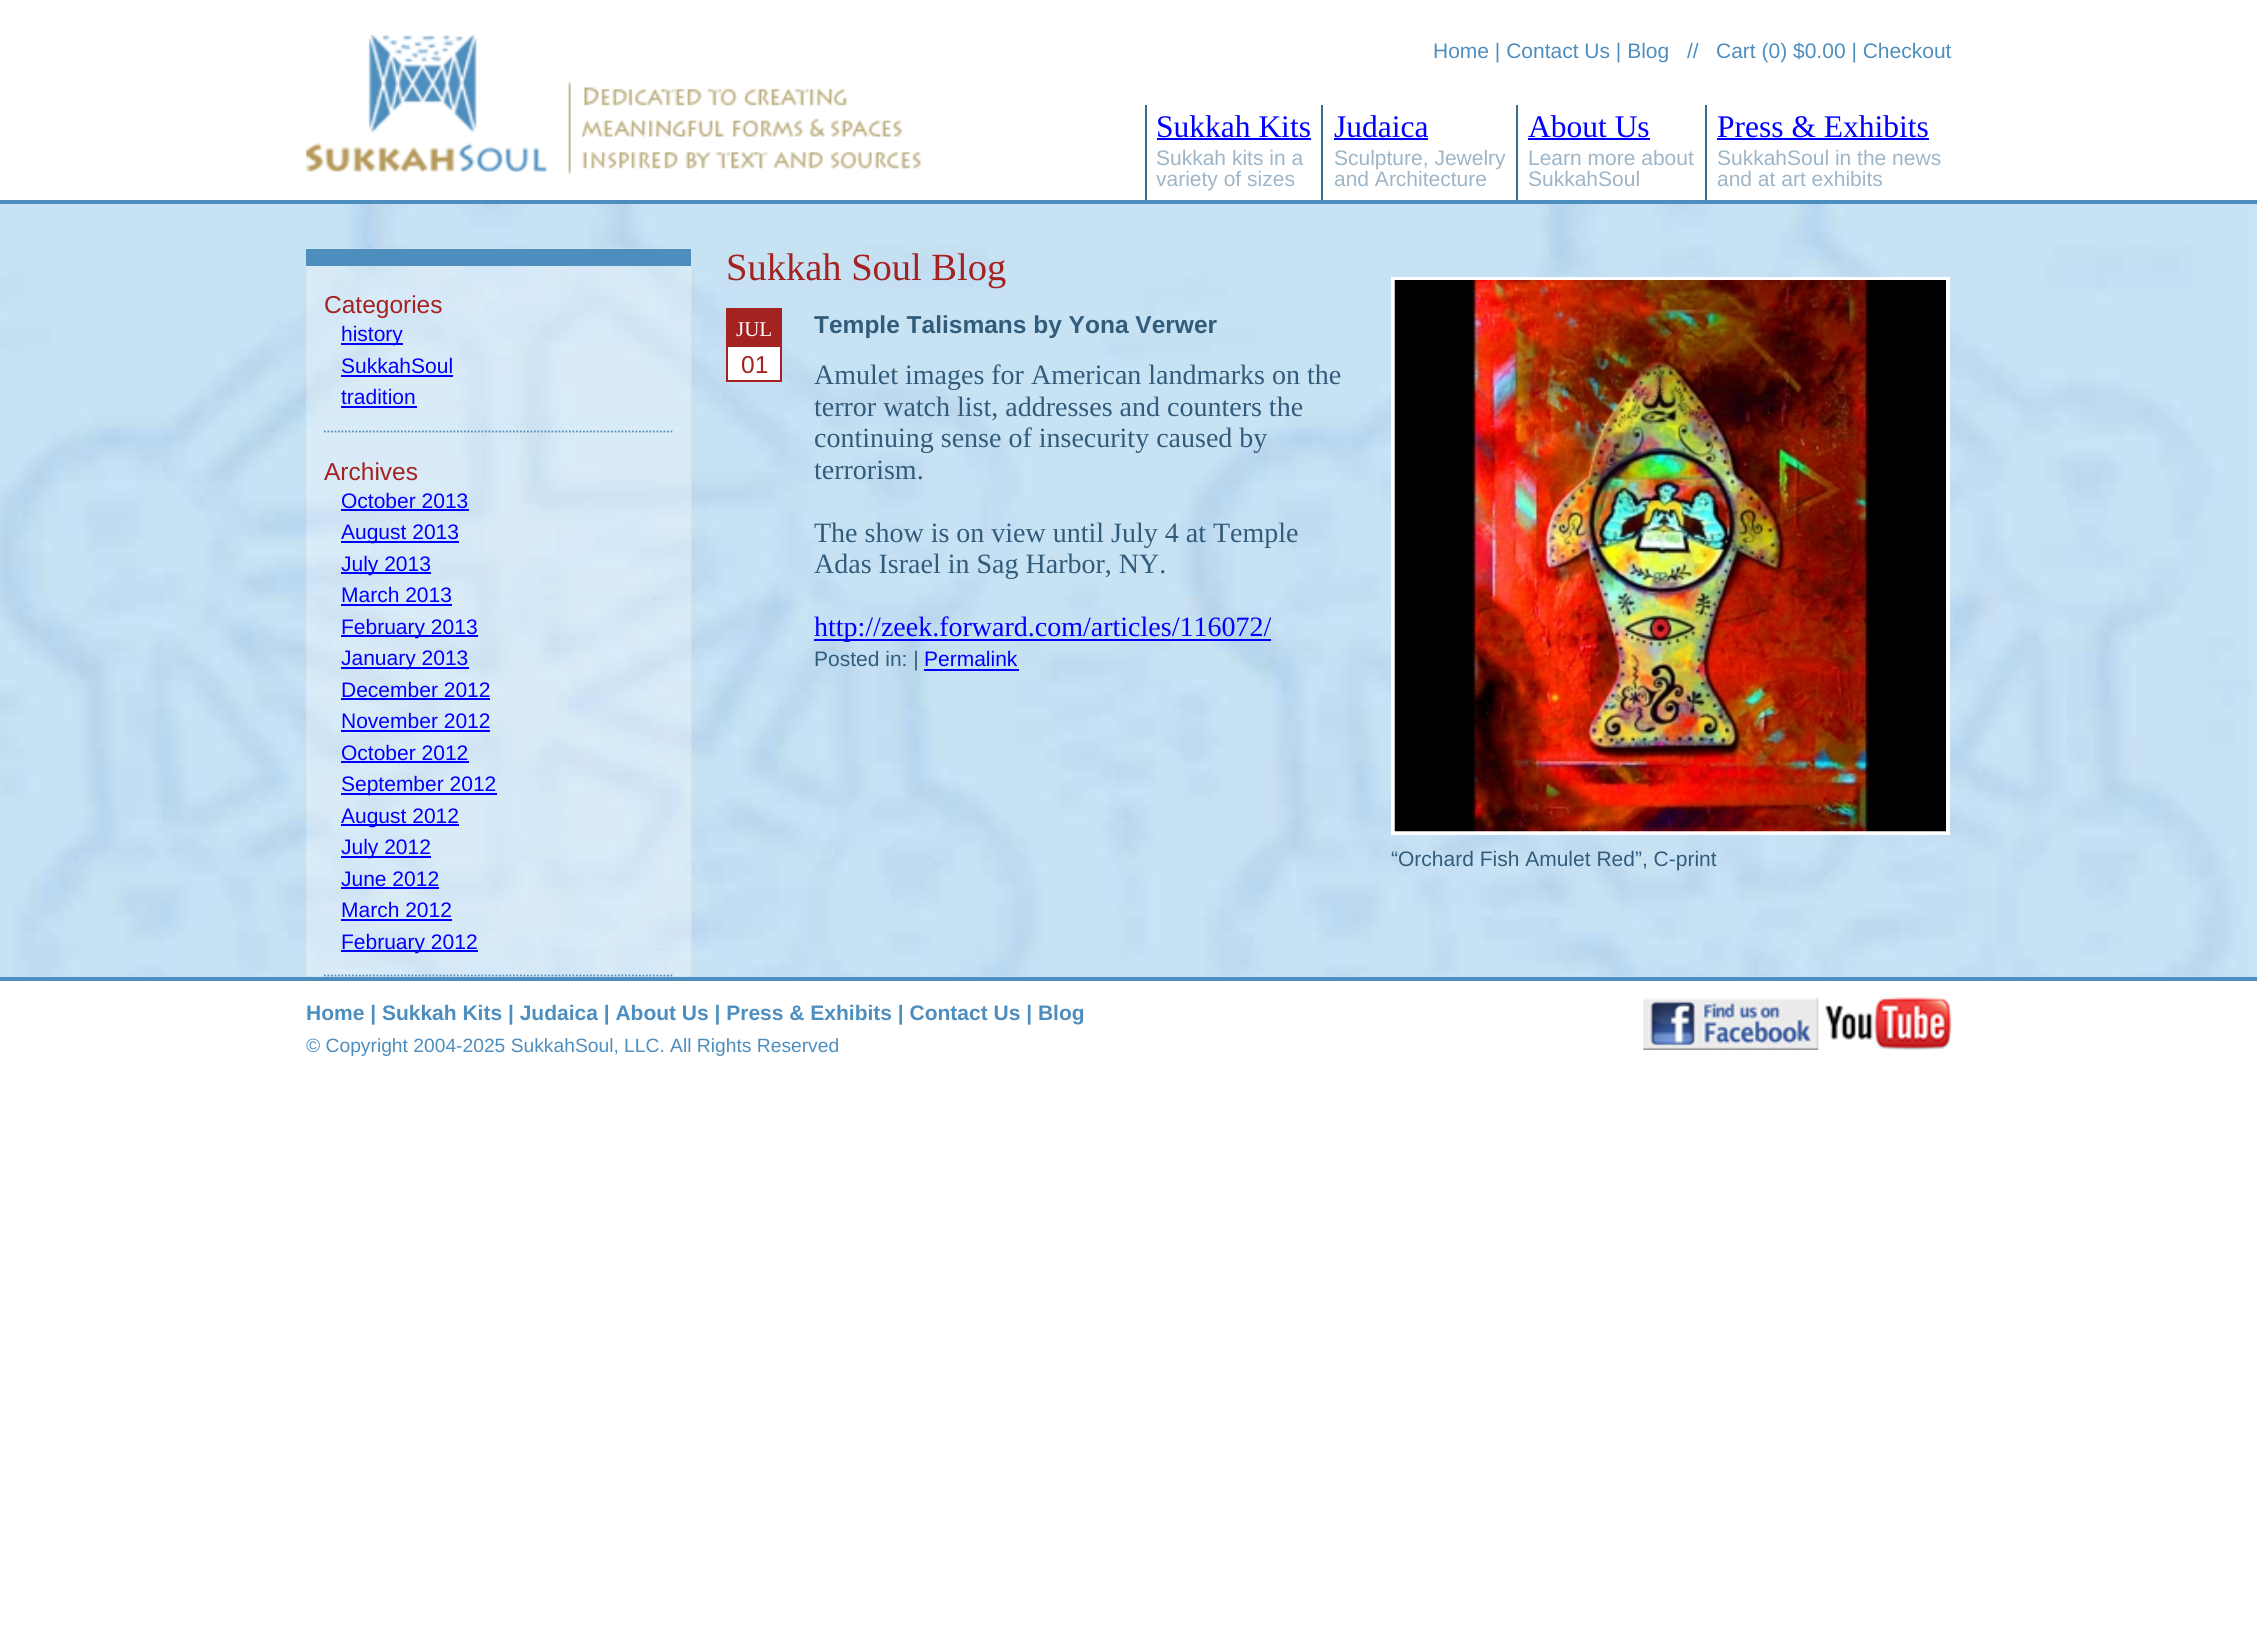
#include <cairo.h>
#include <math.h>
#include <stddef.h>


static void picture(cairo_t *cr, const char *path, double x, double y, double w, double h) {
    cairo_surface_t *image = cairo_image_surface_create_from_png(path);
    cairo_save(cr);
    cairo_set_source_surface(cr, image, x, y);
    cairo_rectangle(cr, x, y, w, h);
    cairo_fill(cr);
    cairo_restore(cr);
    cairo_surface_destroy(image);
}

int main(void) {
    cairo_surface_t *surface = cairo_image_surface_create(CAIRO_FORMAT_RGB24, 2257, 1631);
    cairo_t *cr = cairo_create(surface);
    cairo_font_options_t *options = cairo_font_options_create();
    cairo_font_options_set_hint_metrics(options, CAIRO_HINT_METRICS_OFF);
    cairo_font_options_set_hint_style(options, CAIRO_HINT_STYLE_NONE);
    cairo_set_font_options(cr, options);
    cairo_set_miter_limit(cr, 4);
    cairo_set_source_rgb(cr, 1, 1, 1);
    cairo_paint(cr);
    cairo_set_source_rgb(cr, 0.306, 0.557, 0.745);
    cairo_rectangle(cr, 0, 200, 2257, 4);
    cairo_fill(cr);
    picture(cr, "img1.png", 306, 35, 615, 139);
    cairo_select_font_face(cr, "Liberation Sans", CAIRO_FONT_SLANT_NORMAL, CAIRO_FONT_WEIGHT_NORMAL);
    cairo_set_font_size(cr, 21);
    cairo_move_to(cr, 1433, 58);
    cairo_show_text(cr, "Home | Contact Us | Blog");
    cairo_move_to(cr, 1687, 58);
    cairo_show_text(cr, "//");
    cairo_move_to(cr, 1716, 58);
    cairo_show_text(cr, "Cart (0) $0.00 | Checkout");
    cairo_set_source_rgb(cr, 0.231, 0.42, 0.561);
    cairo_rectangle(cr, 1145, 105, 2, 95);
    cairo_fill(cr);
    cairo_select_font_face(cr, "Liberation Serif", CAIRO_FONT_SLANT_NORMAL, CAIRO_FONT_WEIGHT_NORMAL);
    cairo_set_font_size(cr, 31.5);
    cairo_set_source_rgb(cr, 0, 0, 1);
    cairo_move_to(cr, 1156, 137);
    cairo_show_text(cr, "Sukkah Kits");
    cairo_rectangle(cr, 1157, 138, 154, 2);
    cairo_fill(cr);
    cairo_select_font_face(cr, "Liberation Sans", CAIRO_FONT_SLANT_NORMAL, CAIRO_FONT_WEIGHT_NORMAL);
    cairo_set_font_size(cr, 21);
    cairo_set_source_rgb(cr, 0.616, 0.71, 0.78);
    cairo_move_to(cr, 1156, 165);
    cairo_show_text(cr, "Sukkah kits in a");
    cairo_move_to(cr, 1156, 186);
    cairo_show_text(cr, "variety of sizes");
    cairo_set_source_rgb(cr, 0.231, 0.42, 0.561);
    cairo_rectangle(cr, 1321, 105, 2, 95);
    cairo_fill(cr);
    cairo_select_font_face(cr, "Liberation Serif", CAIRO_FONT_SLANT_NORMAL, CAIRO_FONT_WEIGHT_NORMAL);
    cairo_set_font_size(cr, 31.5);
    cairo_set_source_rgb(cr, 0, 0, 1);
    cairo_move_to(cr, 1334, 137);
    cairo_show_text(cr, "Judaica");
    cairo_rectangle(cr, 1334, 138, 94, 2);
    cairo_fill(cr);
    cairo_select_font_face(cr, "Liberation Sans", CAIRO_FONT_SLANT_NORMAL, CAIRO_FONT_WEIGHT_NORMAL);
    cairo_set_font_size(cr, 21);
    cairo_set_source_rgb(cr, 0.616, 0.71, 0.78);
    cairo_move_to(cr, 1334, 165);
    cairo_show_text(cr, "Sculpture, Jewelry");
    cairo_move_to(cr, 1334, 186);
    cairo_show_text(cr, "and Architecture");
    cairo_set_source_rgb(cr, 0.231, 0.42, 0.561);
    cairo_rectangle(cr, 1516, 105, 2, 95);
    cairo_fill(cr);
    cairo_select_font_face(cr, "Liberation Serif", CAIRO_FONT_SLANT_NORMAL, CAIRO_FONT_WEIGHT_NORMAL);
    cairo_set_font_size(cr, 31.5);
    cairo_set_source_rgb(cr, 0, 0, 1);
    cairo_move_to(cr, 1528, 137);
    cairo_show_text(cr, "About Us");
    cairo_rectangle(cr, 1528, 138, 122, 2);
    cairo_fill(cr);
    cairo_select_font_face(cr, "Liberation Sans", CAIRO_FONT_SLANT_NORMAL, CAIRO_FONT_WEIGHT_NORMAL);
    cairo_set_font_size(cr, 21);
    cairo_set_source_rgb(cr, 0.616, 0.71, 0.78);
    cairo_move_to(cr, 1528, 165);
    cairo_show_text(cr, "Learn more about");
    cairo_move_to(cr, 1528, 186);
    cairo_show_text(cr, "SukkahSoul");
    cairo_set_source_rgb(cr, 0.231, 0.42, 0.561);
    cairo_rectangle(cr, 1705, 105, 2, 95);
    cairo_fill(cr);
    cairo_select_font_face(cr, "Liberation Serif", CAIRO_FONT_SLANT_NORMAL, CAIRO_FONT_WEIGHT_NORMAL);
    cairo_set_font_size(cr, 31.5);
    cairo_set_source_rgb(cr, 0, 0, 1);
    cairo_move_to(cr, 1717, 137);
    cairo_show_text(cr, "Press & Exhibits");
    cairo_rectangle(cr, 1717, 138, 212, 2);
    cairo_fill(cr);
    cairo_select_font_face(cr, "Liberation Sans", CAIRO_FONT_SLANT_NORMAL, CAIRO_FONT_WEIGHT_NORMAL);
    cairo_set_font_size(cr, 21);
    cairo_set_source_rgb(cr, 0.616, 0.71, 0.78);
    cairo_move_to(cr, 1717, 165);
    cairo_show_text(cr, "SukkahSoul in the news");
    cairo_move_to(cr, 1717, 186);
    cairo_show_text(cr, "and at art exhibits");
    cairo_set_source_rgb(cr, 0.788, 0.886, 0.957);
    cairo_rectangle(cr, 0, 204, 2257, 773);
    cairo_fill(cr);
    picture(cr, "img2.png", 0, 204, 2251, 773);
    picture(cr, "img3.png", 306, 248, 386, 729);
    cairo_set_source_rgb(cr, 0.306, 0.557, 0.745);
    cairo_rectangle(cr, 306, 249, 385, 17);
    cairo_fill(cr);
    cairo_new_path(cr);
    cairo_move_to(cr, 324, 431.5);
    cairo_line_to(cr, 674, 431.5);
    cairo_set_line_width(cr, 1.8);
    cairo_set_dash(cr, (double[]){1.75, 1.75}, 2, 0);
    cairo_stroke(cr);
    cairo_set_font_size(cr, 24.5);
    cairo_set_source_rgb(cr, 0.643, 0.133, 0.122);
    cairo_move_to(cr, 324, 313);
    cairo_show_text(cr, "Categories");
    cairo_set_source_rgb(cr, 0, 0, 1);
    cairo_rectangle(cr, 341, 343, 62, 2);
    cairo_fill(cr);
    cairo_set_font_size(cr, 21);
    cairo_move_to(cr, 341, 341);
    cairo_show_text(cr, "history");
    cairo_move_to(cr, 341, 373);
    cairo_show_text(cr, "SukkahSoul");
    cairo_rectangle(cr, 341, 375, 112, 2);
    cairo_fill(cr);
    cairo_move_to(cr, 341, 404);
    cairo_show_text(cr, "tradition");
    cairo_rectangle(cr, 341, 406, 76, 2);
    cairo_fill(cr);
    cairo_new_path(cr);
    cairo_move_to(cr, 324, 975.5);
    cairo_line_to(cr, 674, 975.5);
    cairo_set_source_rgb(cr, 0.306, 0.557, 0.745);
    cairo_stroke(cr);
    cairo_set_font_size(cr, 24.5);
    cairo_set_source_rgb(cr, 0.643, 0.133, 0.122);
    cairo_move_to(cr, 324, 480);
    cairo_show_text(cr, "Archives");
    cairo_set_font_size(cr, 21);
    cairo_set_source_rgb(cr, 0, 0, 1);
    cairo_move_to(cr, 341, 508);
    cairo_show_text(cr, "October 2013");
    cairo_rectangle(cr, 341, 509, 128, 2);
    cairo_fill(cr);
    cairo_rectangle(cr, 341, 541, 118, 2);
    cairo_fill(cr);
    cairo_move_to(cr, 341, 539);
    cairo_show_text(cr, "August 2013");
    cairo_rectangle(cr, 341, 572, 90, 2);
    cairo_fill(cr);
    cairo_move_to(cr, 341, 571);
    cairo_show_text(cr, "July 2013");
    cairo_move_to(cr, 341, 602);
    cairo_show_text(cr, "March 2013");
    cairo_rectangle(cr, 341, 604, 111, 2);
    cairo_fill(cr);
    cairo_rectangle(cr, 341, 635, 137, 2);
    cairo_fill(cr);
    cairo_move_to(cr, 341, 634);
    cairo_show_text(cr, "February 2013");
    cairo_rectangle(cr, 341, 667, 128, 2);
    cairo_fill(cr);
    cairo_move_to(cr, 341, 665);
    cairo_show_text(cr, "January 2013");
    cairo_move_to(cr, 341, 697);
    cairo_show_text(cr, "December 2012");
    cairo_rectangle(cr, 341, 698, 149, 2);
    cairo_fill(cr);
    cairo_move_to(cr, 341, 728);
    cairo_show_text(cr, "November 2012");
    cairo_rectangle(cr, 341, 730, 149, 2);
    cairo_fill(cr);
    cairo_move_to(cr, 341, 760);
    cairo_show_text(cr, "October 2012");
    cairo_rectangle(cr, 341, 761, 128, 2);
    cairo_fill(cr);
    cairo_rectangle(cr, 341, 793, 156, 2);
    cairo_fill(cr);
    cairo_move_to(cr, 341, 791);
    cairo_show_text(cr, "September 2012");
    cairo_rectangle(cr, 341, 824, 118, 2);
    cairo_fill(cr);
    cairo_move_to(cr, 341, 823);
    cairo_show_text(cr, "August 2012");
    cairo_rectangle(cr, 341, 856, 90, 2);
    cairo_fill(cr);
    cairo_move_to(cr, 341, 854);
    cairo_show_text(cr, "July 2012");
    cairo_move_to(cr, 341, 886);
    cairo_show_text(cr, "June 2012");
    cairo_rectangle(cr, 341, 887, 98, 2);
    cairo_fill(cr);
    cairo_move_to(cr, 341, 917);
    cairo_show_text(cr, "March 2012");
    cairo_rectangle(cr, 341, 919, 111, 2);
    cairo_fill(cr);
    cairo_rectangle(cr, 341, 950, 137, 2);
    cairo_fill(cr);
    cairo_move_to(cr, 341, 949);
    cairo_show_text(cr, "February 2012");
    cairo_select_font_face(cr, "Liberation Serif", CAIRO_FONT_SLANT_NORMAL, CAIRO_FONT_WEIGHT_NORMAL);
    cairo_set_font_size(cr, 38.5);
    cairo_set_source_rgb(cr, 0.643, 0.133, 0.122);
    cairo_move_to(cr, 726, 280);
    cairo_show_text(cr, "Sukkah Soul Blog");
    cairo_set_source_rgb(cr, 1, 1, 1);
    cairo_rectangle(cr, 728, 347, 52, 33);
    cairo_fill(cr);
    cairo_rectangle(cr, 727, 309, 54, 72);
    cairo_set_source_rgb(cr, 0.643, 0.133, 0.122);
    cairo_set_line_width(cr, 2);
    cairo_set_dash(cr, NULL, 0, 0);
    cairo_stroke(cr);
    cairo_rectangle(cr, 728, 310, 52, 37);
    cairo_fill(cr);
    cairo_set_font_size(cr, 21);
    cairo_set_source_rgb(cr, 1, 1, 1);
    cairo_move_to(cr, 736, 336);
    cairo_show_text(cr, "JUL");
    cairo_select_font_face(cr, "Liberation Sans", CAIRO_FONT_SLANT_NORMAL, CAIRO_FONT_WEIGHT_NORMAL);
    cairo_set_font_size(cr, 24.5);
    cairo_set_source_rgb(cr, 0.643, 0.133, 0.122);
    cairo_move_to(cr, 741, 373);
    cairo_show_text(cr, "01");
    cairo_select_font_face(cr, "Liberation Sans", CAIRO_FONT_SLANT_NORMAL, CAIRO_FONT_WEIGHT_BOLD);
    cairo_set_source_rgb(cr, 0.196, 0.361, 0.482);
    cairo_move_to(cr, 814, 333);
    cairo_show_text(cr, "Temple Talismans by Yona Verwer");
    cairo_select_font_face(cr, "Liberation Serif", CAIRO_FONT_SLANT_NORMAL, CAIRO_FONT_WEIGHT_NORMAL);
    cairo_set_font_size(cr, 28);
    cairo_move_to(cr, 814, 384);
    cairo_show_text(cr, "Amulet images for American landmarks on the");
    cairo_move_to(cr, 814, 416);
    cairo_show_text(cr, "terror watch list, addresses and counters the");
    cairo_move_to(cr, 814, 447);
    cairo_show_text(cr, "continuing sense of insecurity caused by");
    cairo_move_to(cr, 814, 479);
    cairo_show_text(cr, "terrorism.");
    cairo_move_to(cr, 814, 542);
    cairo_show_text(cr, "The show is on view until July 4 at Temple");
    cairo_move_to(cr, 814, 573);
    cairo_show_text(cr, "Adas Israel in Sag Harbor, NY.");
    cairo_set_source_rgb(cr, 0, 0, 1);
    cairo_rectangle(cr, 814, 639, 457, 2);
    cairo_fill(cr);
    cairo_move_to(cr, 814, 636);
    cairo_show_text(cr, "http://zeek.forward.com/articles/116072/");
    cairo_select_font_face(cr, "Liberation Sans", CAIRO_FONT_SLANT_NORMAL, CAIRO_FONT_WEIGHT_NORMAL);
    cairo_set_font_size(cr, 21);
    cairo_set_source_rgb(cr, 0.196, 0.361, 0.482);
    cairo_move_to(cr, 814, 666);
    cairo_show_text(cr, "Posted in: |");
    cairo_set_source_rgb(cr, 0, 0, 1);
    cairo_move_to(cr, 924, 666);
    cairo_show_text(cr, "Permalink");
    cairo_rectangle(cr, 924, 669, 95, 2);
    cairo_fill(cr);
    cairo_rectangle(cr, 1393, 279, 555, 554);
    cairo_set_source_rgb(cr, 1, 1, 1);
    cairo_set_line_width(cr, 4);
    cairo_stroke(cr);
    picture(cr, "img4.png", 1394, 280, 552, 552);
    cairo_set_source_rgb(cr, 0.196, 0.361, 0.482);
    cairo_move_to(cr, 1391, 866);
    cairo_show_text(cr, "“Orchard Fish Amulet Red”, C-print");
    cairo_set_source_rgb(cr, 0.306, 0.557, 0.745);
    cairo_rectangle(cr, 0, 977, 2257, 4);
    cairo_fill(cr);
    cairo_select_font_face(cr, "Liberation Sans", CAIRO_FONT_SLANT_NORMAL, CAIRO_FONT_WEIGHT_BOLD);
    cairo_move_to(cr, 306, 1020);
    cairo_show_text(cr, "Home | Sukkah Kits | Judaica | About Us | Press & Exhibits | Contact Us | Blog");
    cairo_select_font_face(cr, "Liberation Sans", CAIRO_FONT_SLANT_NORMAL, CAIRO_FONT_WEIGHT_NORMAL);
    cairo_set_font_size(cr, 19.25);
    cairo_move_to(cr, 306, 1052);
    cairo_show_text(cr, "© Copyright 2004-2025 SukkahSoul, LLC. All Rights Reserved");
    picture(cr, "img5.png", 1643, 997, 176, 53);
    picture(cr, "img6.png", 1825, 997, 127, 53);
    cairo_surface_write_to_png(surface, "page.png");
    cairo_font_options_destroy(options);
    cairo_destroy(cr);
    cairo_surface_destroy(surface);
    return 0;
}
